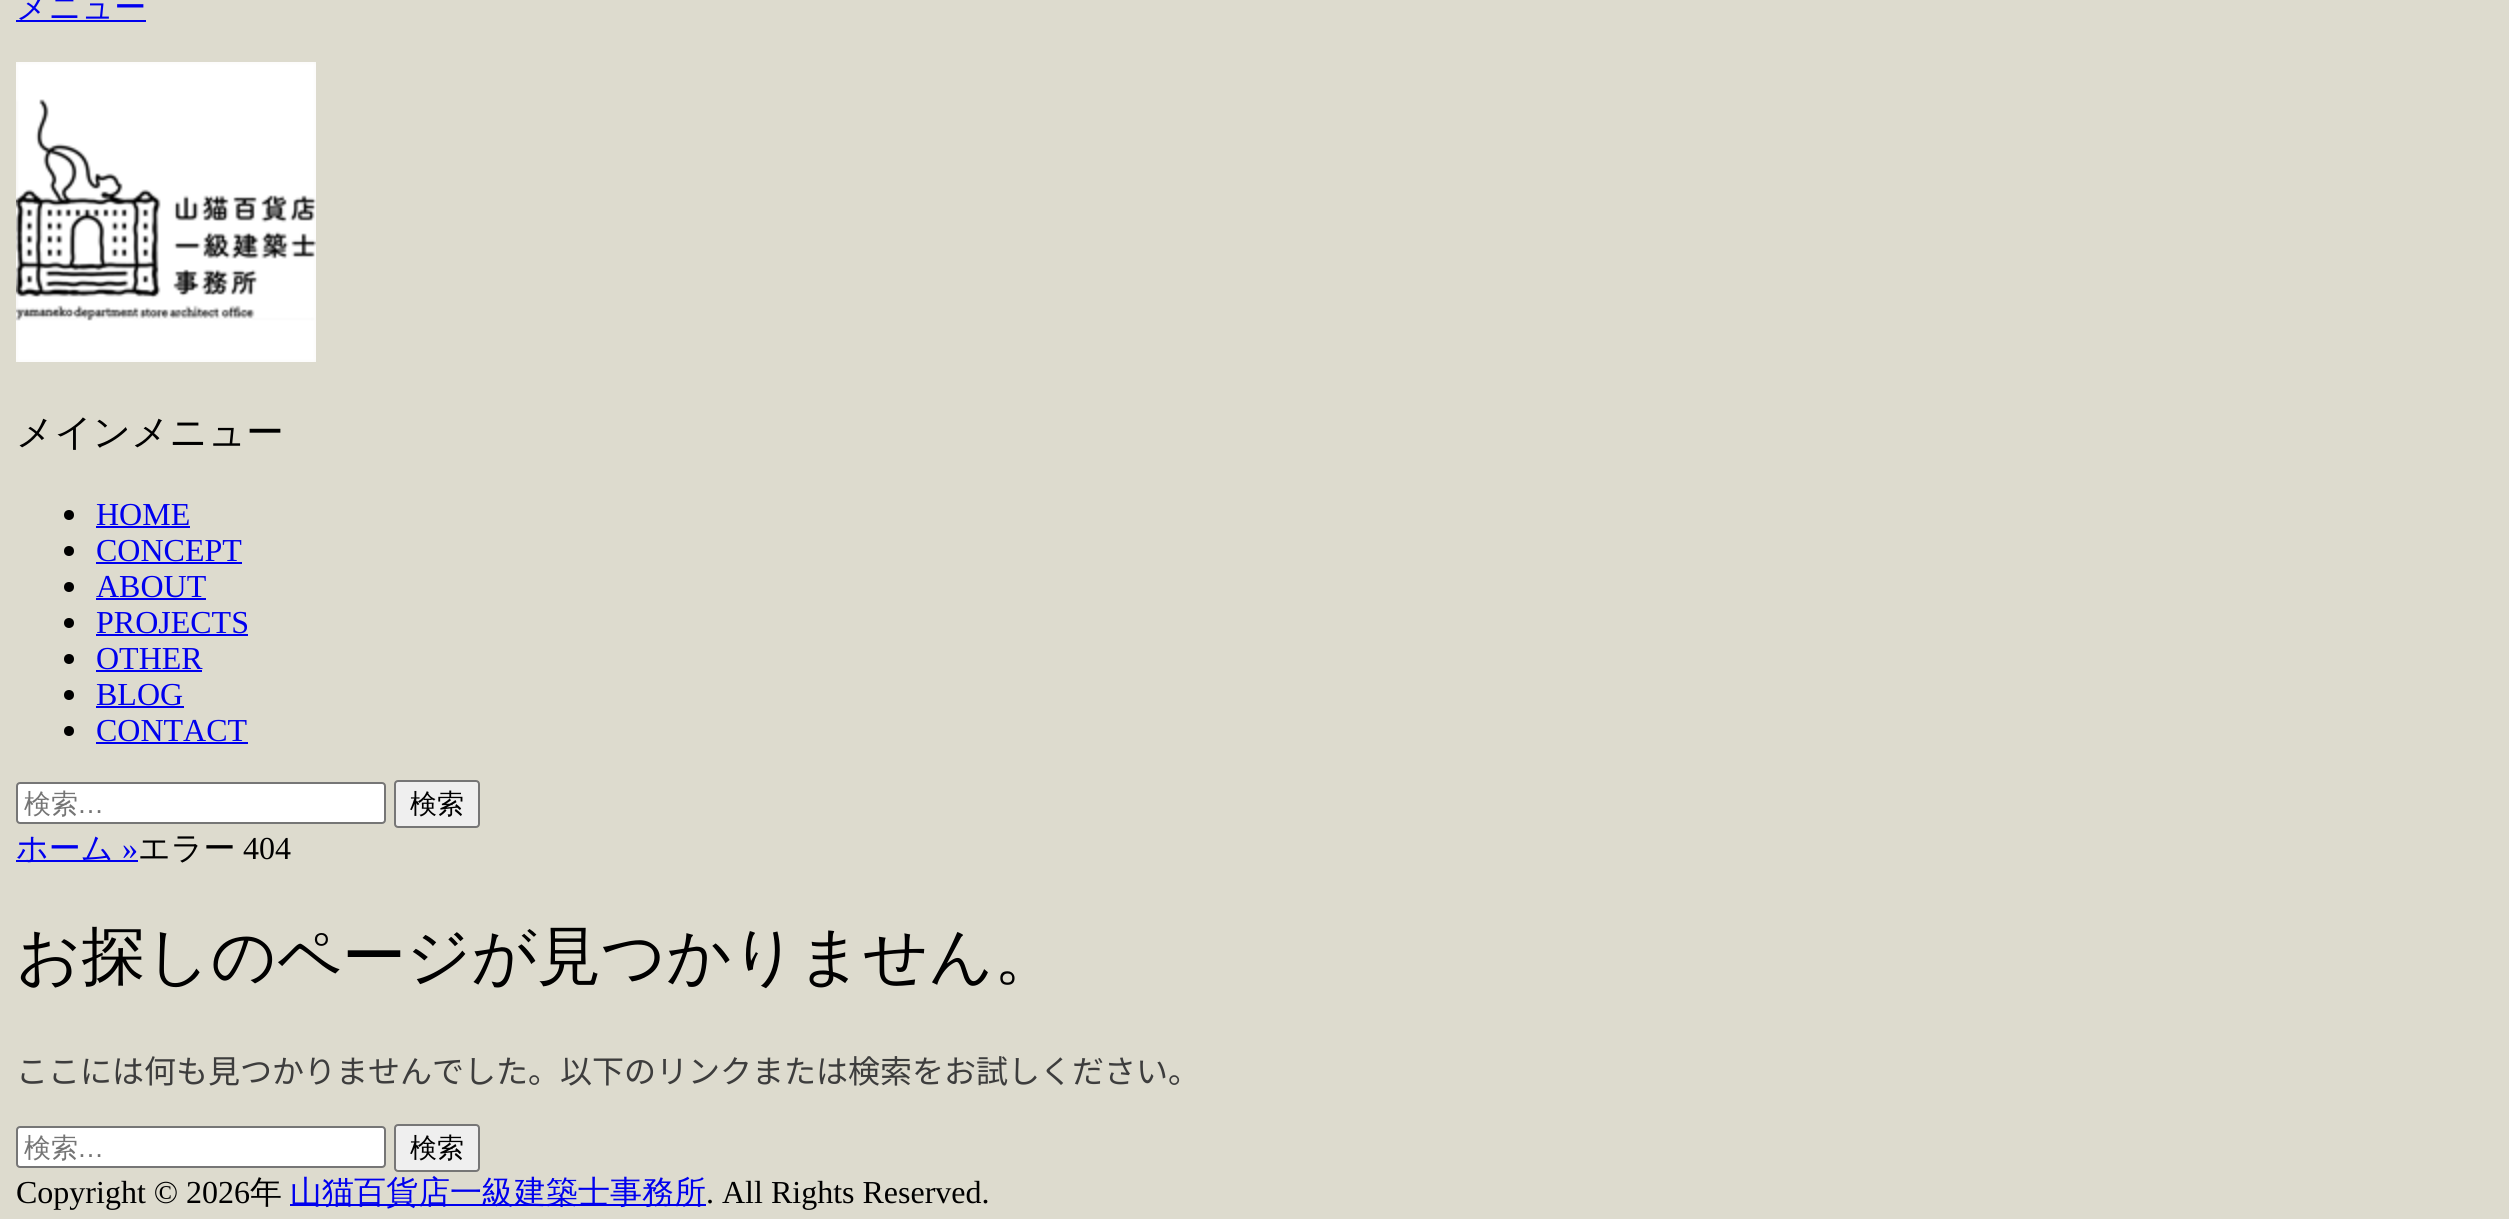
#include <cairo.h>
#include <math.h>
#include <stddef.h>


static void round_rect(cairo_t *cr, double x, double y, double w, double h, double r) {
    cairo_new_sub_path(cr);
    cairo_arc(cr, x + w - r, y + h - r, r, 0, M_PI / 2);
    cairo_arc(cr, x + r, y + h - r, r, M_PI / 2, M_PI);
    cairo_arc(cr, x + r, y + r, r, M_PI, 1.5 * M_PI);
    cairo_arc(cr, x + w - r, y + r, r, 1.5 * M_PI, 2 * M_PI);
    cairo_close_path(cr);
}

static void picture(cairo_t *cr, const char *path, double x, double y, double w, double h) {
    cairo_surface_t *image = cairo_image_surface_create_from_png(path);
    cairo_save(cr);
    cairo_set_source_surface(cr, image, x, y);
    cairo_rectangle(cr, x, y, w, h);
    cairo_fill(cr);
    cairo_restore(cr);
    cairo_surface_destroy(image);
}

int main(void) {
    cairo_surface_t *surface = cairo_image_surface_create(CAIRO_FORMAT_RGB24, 2509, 1219);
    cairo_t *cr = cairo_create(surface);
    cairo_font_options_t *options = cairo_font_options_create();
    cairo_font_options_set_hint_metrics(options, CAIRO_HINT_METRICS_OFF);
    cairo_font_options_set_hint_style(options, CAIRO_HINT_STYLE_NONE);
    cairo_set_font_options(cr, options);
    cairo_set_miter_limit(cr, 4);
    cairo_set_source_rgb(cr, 0.867, 0.859, 0.808);
    cairo_paint(cr);
    cairo_select_font_face(cr, "WenQuanYi Zen Hei Medium", CAIRO_FONT_SLANT_NORMAL, CAIRO_FONT_WEIGHT_NORMAL);
    cairo_set_font_size(cr, 32);
    cairo_set_source_rgb(cr, 0, 0, 0.933);
    cairo_move_to(cr, 16, 18);
    cairo_show_text(cr, "メニュー");
    cairo_rectangle(cr, 16, 20, 130, 2);
    cairo_fill(cr);
    picture(cr, "img1.png", 16, 62, 300, 300);
    cairo_set_font_size(cr, 37.5);
    cairo_set_source_rgb(cr, 0, 0, 0);
    cairo_move_to(cr, 16, 445);
    cairo_show_text(cr, "メインメニュー");
    cairo_new_path(cr);
    cairo_arc(cr, 69, 515, 5, 0, 2 * M_PI);
    cairo_fill(cr);
    cairo_select_font_face(cr, "Liberation Serif", CAIRO_FONT_SLANT_NORMAL, CAIRO_FONT_WEIGHT_NORMAL);
    cairo_set_font_size(cr, 32);
    cairo_set_source_rgb(cr, 0, 0, 0.933);
    cairo_move_to(cr, 96, 525);
    cairo_show_text(cr, "HOME");
    cairo_rectangle(cr, 96, 526, 94, 2);
    cairo_fill(cr);
    cairo_set_source_rgb(cr, 0, 0, 0);
    cairo_arc(cr, 69, 551, 5, 0, 2 * M_PI);
    cairo_fill(cr);
    cairo_set_source_rgb(cr, 0, 0, 0.933);
    cairo_move_to(cr, 96, 561);
    cairo_show_text(cr, "CONCEPT");
    cairo_rectangle(cr, 96, 562, 146, 2);
    cairo_fill(cr);
    cairo_set_source_rgb(cr, 0, 0, 0);
    cairo_arc(cr, 69, 587, 5, 0, 2 * M_PI);
    cairo_fill(cr);
    cairo_set_source_rgb(cr, 0, 0, 0.933);
    cairo_move_to(cr, 96, 597);
    cairo_show_text(cr, "ABOUT");
    cairo_rectangle(cr, 96, 598, 110, 2);
    cairo_fill(cr);
    cairo_set_source_rgb(cr, 0, 0, 0);
    cairo_arc(cr, 69, 623, 5, 0, 2 * M_PI);
    cairo_fill(cr);
    cairo_set_source_rgb(cr, 0, 0, 0.933);
    cairo_move_to(cr, 96, 633);
    cairo_show_text(cr, "PROJECTS");
    cairo_rectangle(cr, 96, 634, 152, 2);
    cairo_fill(cr);
    cairo_set_source_rgb(cr, 0, 0, 0);
    cairo_arc(cr, 69, 659, 5, 0, 2 * M_PI);
    cairo_fill(cr);
    cairo_set_source_rgb(cr, 0, 0, 0.933);
    cairo_move_to(cr, 96, 669);
    cairo_show_text(cr, "OTHER");
    cairo_rectangle(cr, 96, 670, 106, 2);
    cairo_fill(cr);
    cairo_set_source_rgb(cr, 0, 0, 0);
    cairo_arc(cr, 69, 695, 5, 0, 2 * M_PI);
    cairo_fill(cr);
    cairo_set_source_rgb(cr, 0, 0, 0.933);
    cairo_move_to(cr, 96, 705);
    cairo_show_text(cr, "BLOG");
    cairo_rectangle(cr, 96, 706, 88, 2);
    cairo_fill(cr);
    cairo_set_source_rgb(cr, 0, 0, 0);
    cairo_arc(cr, 69, 731, 5, 0, 2 * M_PI);
    cairo_fill(cr);
    cairo_set_source_rgb(cr, 0, 0, 0.933);
    cairo_move_to(cr, 96, 741);
    cairo_show_text(cr, "CONTACT");
    cairo_rectangle(cr, 96, 742, 152, 2);
    cairo_fill(cr);
    cairo_set_source_rgb(cr, 1, 1, 1);
    round_rect(cr, 17, 783, 368, 40, 3);
    cairo_fill_preserve(cr);
    cairo_set_source_rgb(cr, 0.463, 0.463, 0.463);
    cairo_stroke(cr);
    cairo_select_font_face(cr, "WenQuanYi Zen Hei Medium", CAIRO_FONT_SLANT_NORMAL, CAIRO_FONT_WEIGHT_NORMAL);
    cairo_set_font_size(cr, 27);
    cairo_set_source_rgb(cr, 0.459, 0.459, 0.459);
    cairo_move_to(cr, 24, 813);
    cairo_show_text(cr, "検索");
    cairo_select_font_face(cr, "Liberation Sans", CAIRO_FONT_SLANT_NORMAL, CAIRO_FONT_WEIGHT_NORMAL);
    cairo_move_to(cr, 77, 813);
    cairo_show_text(cr, "…");
    cairo_set_source_rgb(cr, 0.937, 0.937, 0.937);
    round_rect(cr, 395, 781, 84, 46, 3);
    cairo_fill_preserve(cr);
    cairo_set_source_rgb(cr, 0.463, 0.463, 0.463);
    cairo_stroke(cr);
    cairo_select_font_face(cr, "WenQuanYi Zen Hei Medium", CAIRO_FONT_SLANT_NORMAL, CAIRO_FONT_WEIGHT_NORMAL);
    cairo_set_source_rgb(cr, 0, 0, 0);
    cairo_move_to(cr, 410, 813);
    cairo_show_text(cr, "検索");
    cairo_set_source_rgb(cr, 0, 0, 0.933);
    cairo_rectangle(cr, 16, 860, 122, 2);
    cairo_fill(cr);
    cairo_set_font_size(cr, 32);
    cairo_move_to(cr, 16, 859);
    cairo_show_text(cr, "ホーム");
    cairo_select_font_face(cr, "Liberation Serif", CAIRO_FONT_SLANT_NORMAL, CAIRO_FONT_WEIGHT_NORMAL);
    cairo_move_to(cr, 122, 859);
    cairo_show_text(cr, "»");
    cairo_select_font_face(cr, "WenQuanYi Zen Hei Medium", CAIRO_FONT_SLANT_NORMAL, CAIRO_FONT_WEIGHT_NORMAL);
    cairo_set_source_rgb(cr, 0, 0, 0);
    cairo_move_to(cr, 138, 859);
    cairo_show_text(cr, "エラー");
    cairo_select_font_face(cr, "Liberation Serif", CAIRO_FONT_SLANT_NORMAL, CAIRO_FONT_WEIGHT_NORMAL);
    cairo_move_to(cr, 243, 859);
    cairo_show_text(cr, "404");
    cairo_select_font_face(cr, "WenQuanYi Zen Hei Medium", CAIRO_FONT_SLANT_NORMAL, CAIRO_FONT_WEIGHT_NORMAL);
    cairo_set_font_size(cr, 64);
    cairo_move_to(cr, 16, 978);
    cairo_show_text(cr, "お探しのページが見つかりません。");
    cairo_select_font_face(cr, "Noto Sans JP", CAIRO_FONT_SLANT_NORMAL, CAIRO_FONT_WEIGHT_NORMAL);
    cairo_set_font_size(cr, 32);
    cairo_set_source_rgb(cr, 0.239, 0.239, 0.239);
    cairo_move_to(cr, 16, 1083);
    cairo_show_text(cr, "ここには何も見つかりませんでした。以下のリンクまたは検索をお試しください。");
    cairo_set_source_rgb(cr, 1, 1, 1);
    round_rect(cr, 17, 1127, 368, 40, 3);
    cairo_fill_preserve(cr);
    cairo_set_source_rgb(cr, 0.463, 0.463, 0.463);
    cairo_stroke(cr);
    cairo_select_font_face(cr, "WenQuanYi Zen Hei Medium", CAIRO_FONT_SLANT_NORMAL, CAIRO_FONT_WEIGHT_NORMAL);
    cairo_set_font_size(cr, 27);
    cairo_set_source_rgb(cr, 0.459, 0.459, 0.459);
    cairo_move_to(cr, 24, 1157);
    cairo_show_text(cr, "検索");
    cairo_select_font_face(cr, "Liberation Sans", CAIRO_FONT_SLANT_NORMAL, CAIRO_FONT_WEIGHT_NORMAL);
    cairo_move_to(cr, 77, 1157);
    cairo_show_text(cr, "…");
    cairo_set_source_rgb(cr, 0.937, 0.937, 0.937);
    round_rect(cr, 395, 1125, 84, 46, 3);
    cairo_fill_preserve(cr);
    cairo_set_source_rgb(cr, 0.463, 0.463, 0.463);
    cairo_stroke(cr);
    cairo_select_font_face(cr, "WenQuanYi Zen Hei Medium", CAIRO_FONT_SLANT_NORMAL, CAIRO_FONT_WEIGHT_NORMAL);
    cairo_set_source_rgb(cr, 0, 0, 0);
    cairo_move_to(cr, 410, 1157);
    cairo_show_text(cr, "検索");
    cairo_select_font_face(cr, "Liberation Serif", CAIRO_FONT_SLANT_NORMAL, CAIRO_FONT_WEIGHT_NORMAL);
    cairo_set_font_size(cr, 32);
    cairo_move_to(cr, 16, 1203);
    cairo_show_text(cr, "Copyright © 2026");
    cairo_select_font_face(cr, "WenQuanYi Zen Hei Medium", CAIRO_FONT_SLANT_NORMAL, CAIRO_FONT_WEIGHT_NORMAL);
    cairo_move_to(cr, 250, 1203);
    cairo_show_text(cr, "年");
    cairo_set_source_rgb(cr, 0, 0, 0.933);
    cairo_rectangle(cr, 290, 1204, 416, 2);
    cairo_fill(cr);
    cairo_move_to(cr, 290, 1203);
    cairo_show_text(cr, "山猫百貨店一級建築士事務所");
    cairo_select_font_face(cr, "Liberation Serif", CAIRO_FONT_SLANT_NORMAL, CAIRO_FONT_WEIGHT_NORMAL);
    cairo_set_source_rgb(cr, 0, 0, 0);
    cairo_move_to(cr, 706, 1203);
    cairo_show_text(cr, ". All Rights Reserved.");
    cairo_surface_write_to_png(surface, "page.png");
    cairo_font_options_destroy(options);
    cairo_destroy(cr);
    cairo_surface_destroy(surface);
    return 0;
}
